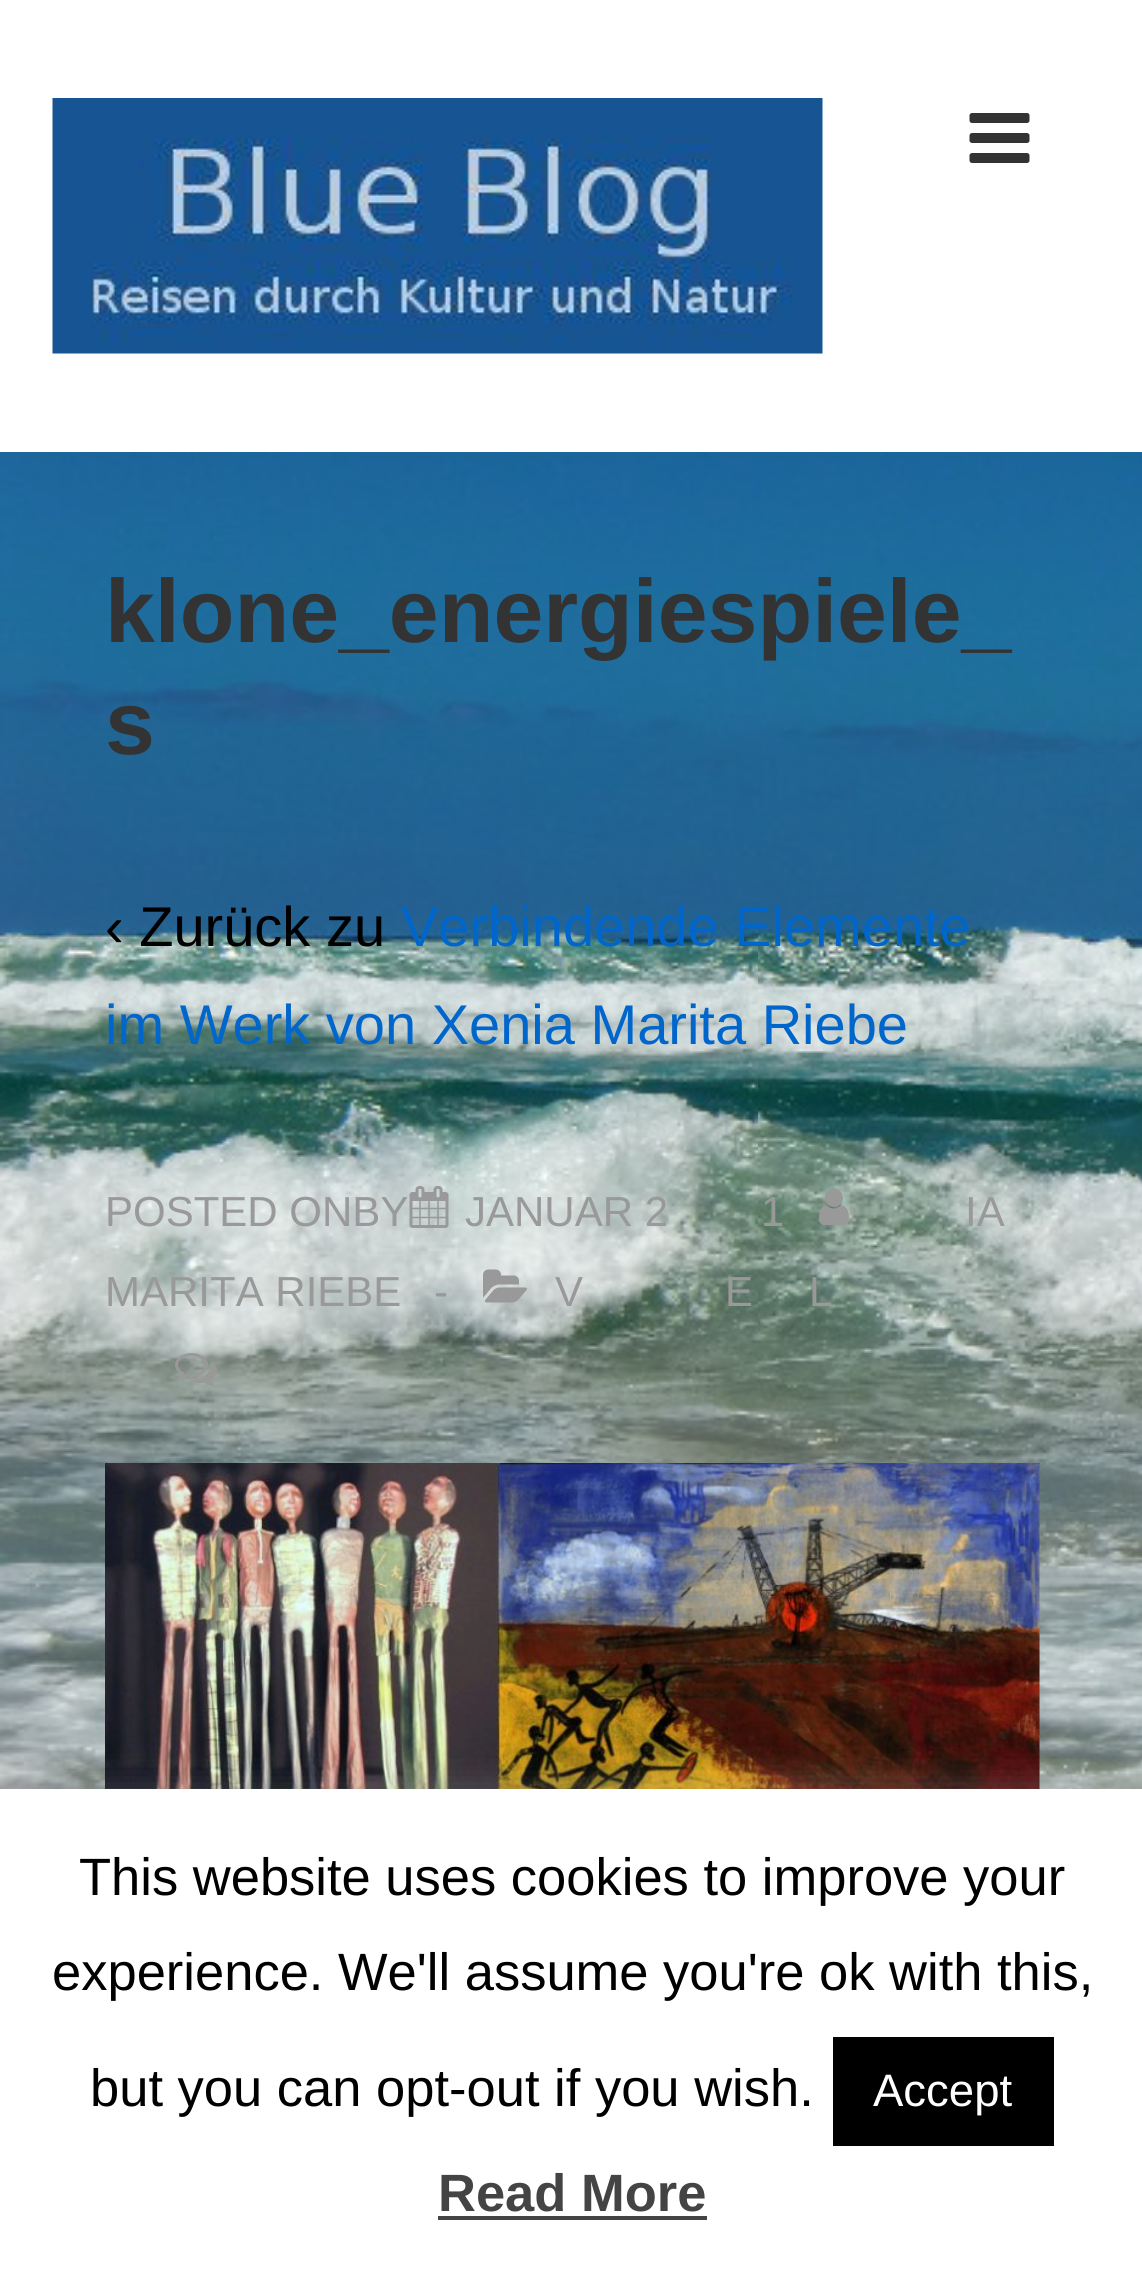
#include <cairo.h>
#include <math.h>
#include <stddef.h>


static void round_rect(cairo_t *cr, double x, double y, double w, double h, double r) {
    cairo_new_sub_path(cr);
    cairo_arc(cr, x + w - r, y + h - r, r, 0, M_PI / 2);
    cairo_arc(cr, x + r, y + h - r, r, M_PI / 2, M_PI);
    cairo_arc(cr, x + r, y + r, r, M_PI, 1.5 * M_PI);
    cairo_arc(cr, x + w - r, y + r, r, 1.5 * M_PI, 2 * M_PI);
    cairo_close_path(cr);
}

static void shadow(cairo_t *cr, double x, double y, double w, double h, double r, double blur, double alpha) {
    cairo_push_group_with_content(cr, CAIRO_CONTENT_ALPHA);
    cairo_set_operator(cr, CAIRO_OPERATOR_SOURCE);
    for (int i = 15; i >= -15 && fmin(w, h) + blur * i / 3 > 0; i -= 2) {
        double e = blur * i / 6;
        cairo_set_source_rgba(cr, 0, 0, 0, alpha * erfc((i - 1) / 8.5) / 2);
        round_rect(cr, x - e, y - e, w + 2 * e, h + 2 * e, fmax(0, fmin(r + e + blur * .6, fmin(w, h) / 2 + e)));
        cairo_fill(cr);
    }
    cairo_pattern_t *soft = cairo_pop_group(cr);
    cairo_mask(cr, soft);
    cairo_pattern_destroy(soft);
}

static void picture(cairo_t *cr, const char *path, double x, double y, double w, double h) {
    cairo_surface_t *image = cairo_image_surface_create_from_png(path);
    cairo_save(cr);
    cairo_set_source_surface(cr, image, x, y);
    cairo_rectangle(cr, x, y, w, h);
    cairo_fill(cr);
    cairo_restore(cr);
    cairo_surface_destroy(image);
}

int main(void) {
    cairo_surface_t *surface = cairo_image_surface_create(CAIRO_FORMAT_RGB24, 1142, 2281);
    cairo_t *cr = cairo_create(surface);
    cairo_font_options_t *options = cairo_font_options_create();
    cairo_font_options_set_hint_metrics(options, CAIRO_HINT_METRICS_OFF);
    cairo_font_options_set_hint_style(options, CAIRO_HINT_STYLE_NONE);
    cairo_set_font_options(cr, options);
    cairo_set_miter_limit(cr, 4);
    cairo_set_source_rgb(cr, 1, 1, 1);
    cairo_paint(cr);
    picture(cr, "img1.png", 0, 452, 1142, 1337);
    picture(cr, "img2.png", 52, 98, 771, 256);
    picture(cr, "img3.png", 969, 113, 61, 50);
    cairo_select_font_face(cr, "Liberation Sans", CAIRO_FONT_SLANT_NORMAL, CAIRO_FONT_WEIGHT_BOLD);
    cairo_set_font_size(cr, 89.6);
    cairo_set_source_rgb(cr, 0.2, 0.2, 0.2);
    cairo_move_to(cr, 105, 642);
    cairo_show_text(cr, "klone_energiespiele_");
    cairo_move_to(cr, 105, 754);
    cairo_show_text(cr, "s");
    cairo_select_font_face(cr, "Liberation Sans", CAIRO_FONT_SLANT_NORMAL, CAIRO_FONT_WEIGHT_NORMAL);
    cairo_set_font_size(cr, 56);
    cairo_set_source_rgb(cr, 0, 0, 0);
    cairo_move_to(cr, 105, 946);
    cairo_show_text(cr, "‹ Zurück zu");
    cairo_set_source_rgb(cr, 0, 0.4, 0.8);
    cairo_move_to(cr, 401, 946);
    cairo_show_text(cr, "Verbindende Elemente");
    cairo_move_to(cr, 105, 1044);
    cairo_show_text(cr, "im Werk von Xenia Marita Riebe");
    cairo_set_font_size(cr, 42);
    cairo_set_source_rgb(cr, 0.6, 0.6, 0.6);
    cairo_move_to(cr, 105, 1226);
    cairo_show_text(cr, "POSTED ONBY");
    picture(cr, "img4.png", 409, 1186, 40, 42);
    cairo_move_to(cr, 465, 1226);
    cairo_show_text(cr, "JANUAR 2");
    cairo_move_to(cr, 761, 1226);
    cairo_show_text(cr, "1");
    picture(cr, "img5.png", 819, 1189, 30, 36);
    cairo_move_to(cr, 965, 1226);
    cairo_show_text(cr, "IA");
    cairo_move_to(cr, 105, 1306);
    cairo_show_text(cr, "MARITA RIEBE");
    cairo_move_to(cr, 434, 1306);
    cairo_show_text(cr, "-");
    picture(cr, "img6.png", 483, 1269, 44, 34);
    cairo_move_to(cr, 555, 1306);
    cairo_show_text(cr, "V");
    cairo_move_to(cr, 725, 1306);
    cairo_show_text(cr, "E");
    cairo_move_to(cr, 809, 1306);
    cairo_show_text(cr, "L");
    picture(cr, "img7.png", 175, 1353, 42, 33);
    picture(cr, "img8.png", 105, 1463, 935, 326);
    cairo_set_source_rgb(cr, 0.675, 0.671, 0.671);
    shadow(cr, 0, 1785, 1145, 494, 0, 17.5, 0.3);
    cairo_set_source_rgb(cr, 1, 1, 1);
    cairo_rectangle(cr, 0, 1789, 1142, 492);
    cairo_fill(cr);
    cairo_set_font_size(cr, 52.5);
    cairo_set_source_rgb(cr, 0, 0, 0);
    cairo_move_to(cr, 79, 1895);
    cairo_show_text(cr, "This website uses cookies to improve your");
    cairo_move_to(cr, 52, 1990);
    cairo_show_text(cr, "experience. We'll assume you're ok with this,");
    cairo_move_to(cr, 90, 2106);
    cairo_show_text(cr, "but you can opt-out if you wish.");
    cairo_rectangle(cr, 833, 2037, 221, 109);
    cairo_fill(cr);
    cairo_set_font_size(cr, 45.5);
    cairo_set_source_rgb(cr, 1, 1, 1);
    cairo_move_to(cr, 873, 2106);
    cairo_show_text(cr, "Accept");
    cairo_select_font_face(cr, "Liberation Sans", CAIRO_FONT_SLANT_NORMAL, CAIRO_FONT_WEIGHT_BOLD);
    cairo_set_font_size(cr, 52.5);
    cairo_set_source_rgb(cr, 0.267, 0.267, 0.267);
    cairo_move_to(cr, 438, 2211);
    cairo_show_text(cr, "Read More");
    cairo_rectangle(cr, 438, 2216, 269, 4);
    cairo_fill(cr);
    cairo_surface_write_to_png(surface, "page.png");
    cairo_font_options_destroy(options);
    cairo_destroy(cr);
    cairo_surface_destroy(surface);
    return 0;
}
